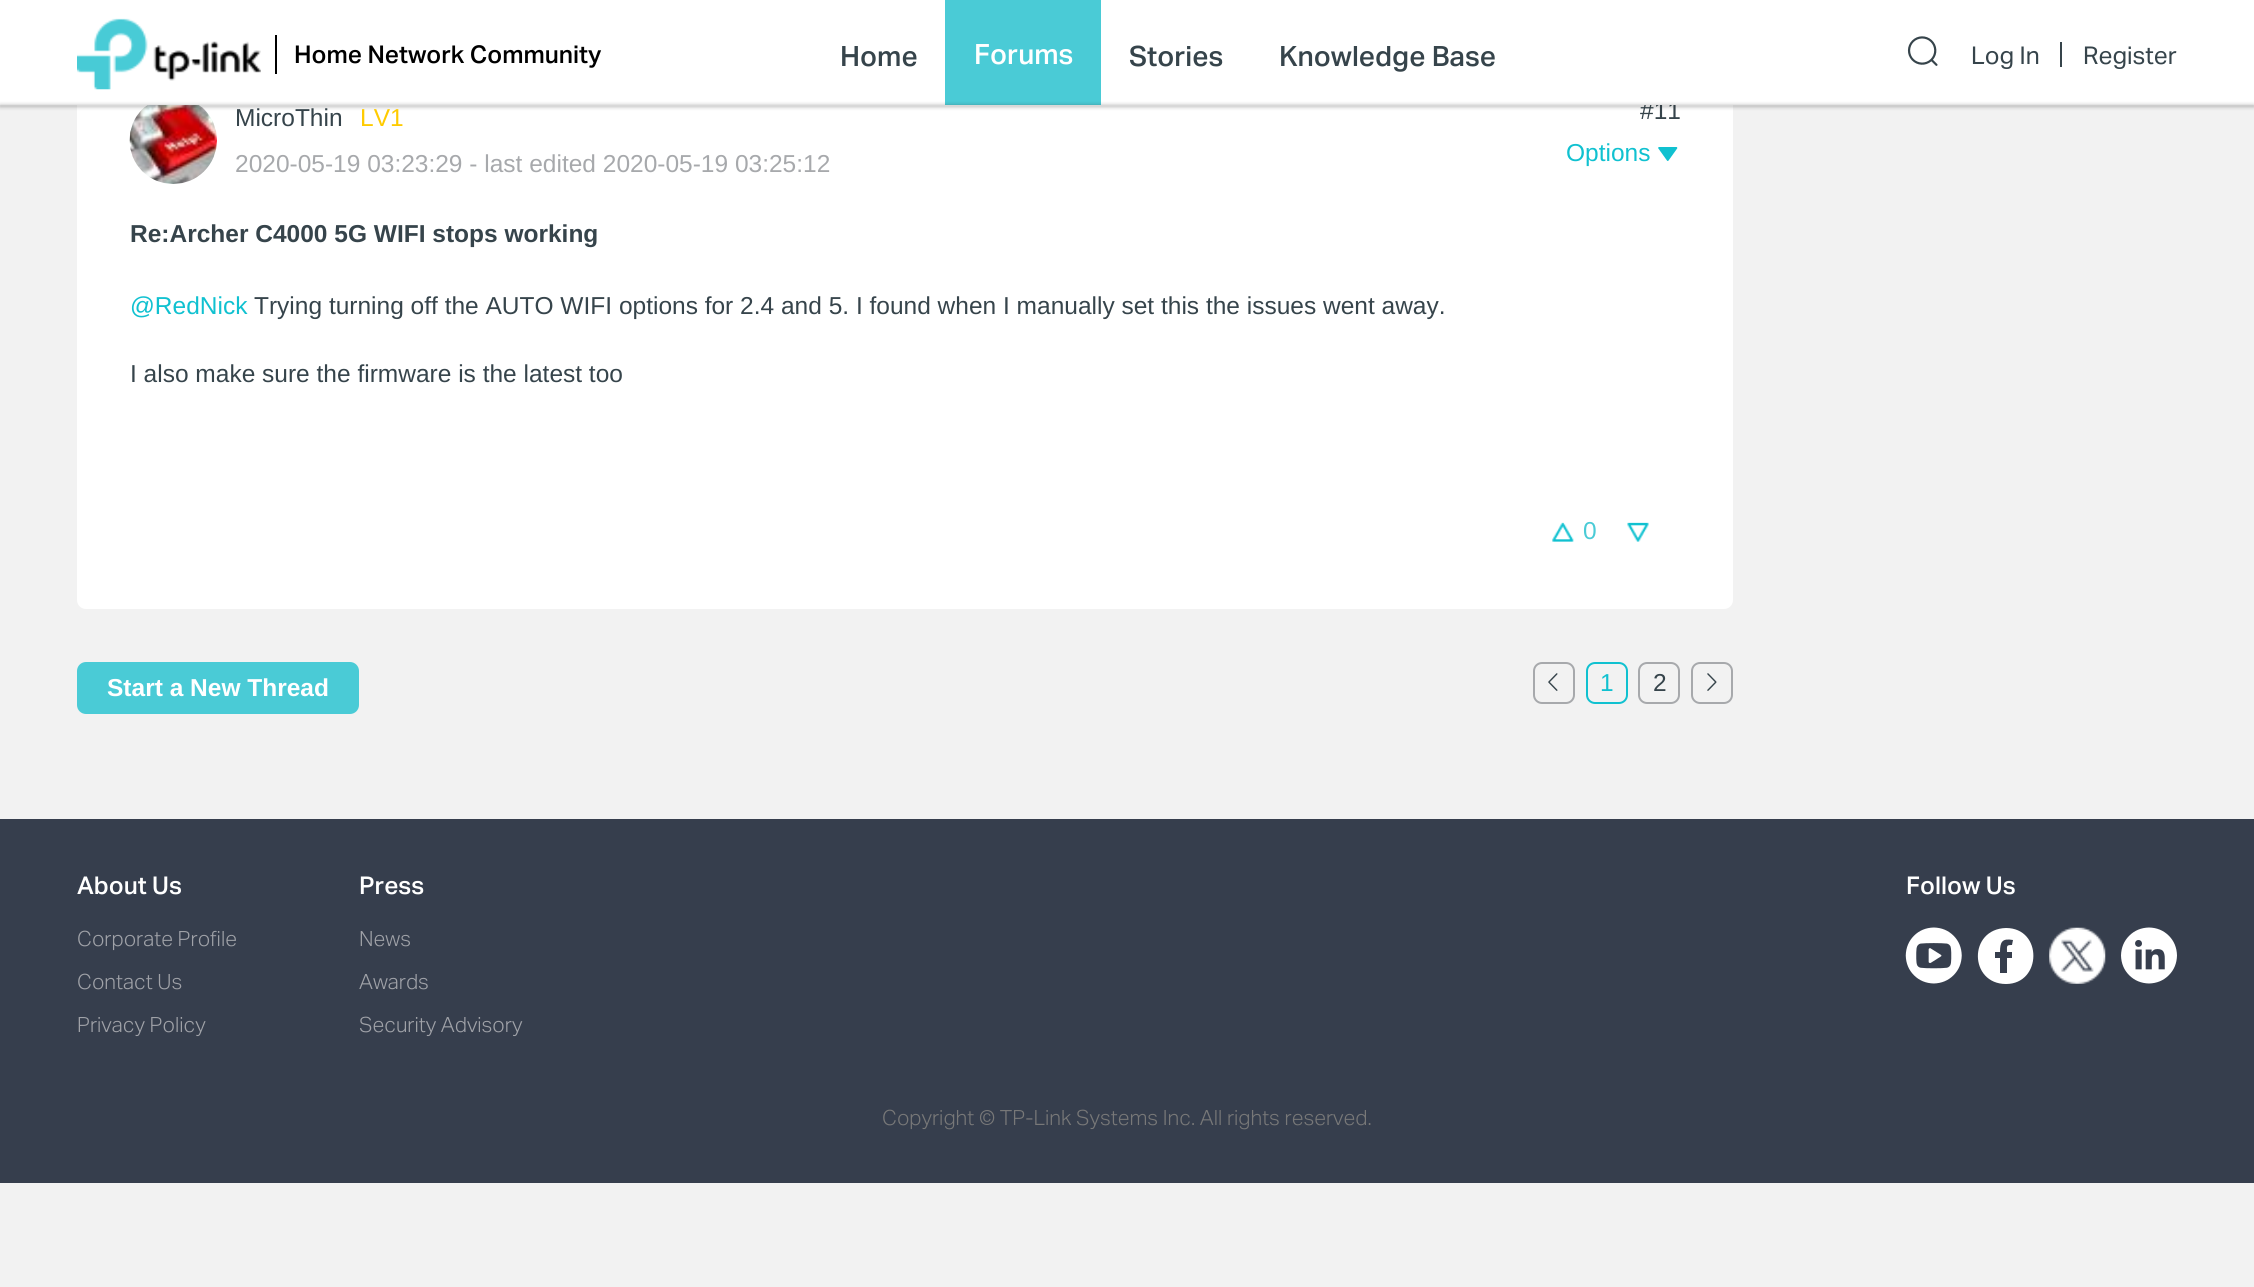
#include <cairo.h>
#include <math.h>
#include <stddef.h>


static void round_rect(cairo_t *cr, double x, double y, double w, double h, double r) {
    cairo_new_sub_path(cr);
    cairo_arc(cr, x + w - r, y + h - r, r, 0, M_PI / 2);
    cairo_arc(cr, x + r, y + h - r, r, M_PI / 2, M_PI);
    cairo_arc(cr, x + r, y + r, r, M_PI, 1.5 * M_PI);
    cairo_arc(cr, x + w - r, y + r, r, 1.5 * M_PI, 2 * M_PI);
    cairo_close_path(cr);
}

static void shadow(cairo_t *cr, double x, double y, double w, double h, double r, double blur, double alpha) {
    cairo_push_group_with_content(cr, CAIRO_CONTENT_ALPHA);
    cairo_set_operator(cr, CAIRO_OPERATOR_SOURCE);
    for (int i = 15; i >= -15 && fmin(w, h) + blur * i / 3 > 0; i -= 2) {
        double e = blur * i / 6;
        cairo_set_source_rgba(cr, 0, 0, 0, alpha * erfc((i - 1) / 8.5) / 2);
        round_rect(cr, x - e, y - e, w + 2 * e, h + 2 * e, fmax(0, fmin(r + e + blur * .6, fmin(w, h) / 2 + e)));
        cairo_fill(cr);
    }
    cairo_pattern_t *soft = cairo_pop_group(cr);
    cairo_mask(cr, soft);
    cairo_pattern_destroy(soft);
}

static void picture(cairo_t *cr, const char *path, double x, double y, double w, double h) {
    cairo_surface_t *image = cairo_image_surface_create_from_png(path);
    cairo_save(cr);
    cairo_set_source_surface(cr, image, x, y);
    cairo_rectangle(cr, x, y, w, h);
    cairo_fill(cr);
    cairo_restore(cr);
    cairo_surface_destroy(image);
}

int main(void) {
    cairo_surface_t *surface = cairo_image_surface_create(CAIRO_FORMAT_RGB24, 2254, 1287);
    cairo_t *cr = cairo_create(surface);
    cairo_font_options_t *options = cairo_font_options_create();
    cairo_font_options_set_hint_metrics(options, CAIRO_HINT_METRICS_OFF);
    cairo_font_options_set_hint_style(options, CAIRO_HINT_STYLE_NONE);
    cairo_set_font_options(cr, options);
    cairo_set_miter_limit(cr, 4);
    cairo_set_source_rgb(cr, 0.949, 0.949, 0.949);
    cairo_paint(cr);
    cairo_set_source_rgb(cr, 1, 1, 1);
    round_rect(cr, 77, 44, 1656, 565, 9);
    cairo_fill(cr);
    cairo_select_font_face(cr, "Liberation Sans", CAIRO_FONT_SLANT_NORMAL, CAIRO_FONT_WEIGHT_NORMAL);
    cairo_set_font_size(cr, 24.5);
    cairo_set_source_rgb(cr, 0.212, 0.267, 0.294);
    cairo_move_to(cr, 1640, 119);
    cairo_show_text(cr, "#11");
    cairo_set_source_rgb(cr, 1, 1, 1);
    cairo_rectangle(cr, 0, 0, 2254, 105);
    cairo_fill(cr);
    picture(cr, "img1.png", 77, 18, 184, 72);
    cairo_set_source_rgb(cr, 0, 0, 0);
    cairo_rectangle(cr, 275, 35, 2, 39);
    cairo_fill(cr);
    cairo_select_font_face(cr, "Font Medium", CAIRO_FONT_SLANT_NORMAL, CAIRO_FONT_WEIGHT_NORMAL);
    cairo_move_to(cr, 294, 63);
    cairo_show_text(cr, "Home Network Community");
    cairo_set_font_size(cr, 28);
    cairo_set_source_rgb(cr, 0.212, 0.267, 0.294);
    cairo_move_to(cr, 840, 66);
    cairo_show_text(cr, "Home");
    cairo_set_source_rgb(cr, 0.29, 0.796, 0.839);
    cairo_rectangle(cr, 945, 0, 156, 105);
    cairo_fill(cr);
    cairo_set_source_rgb(cr, 1, 1, 1);
    cairo_move_to(cr, 974, 64);
    cairo_show_text(cr, "Forums");
    cairo_set_source_rgb(cr, 0.212, 0.267, 0.294);
    cairo_move_to(cr, 1129, 66);
    cairo_show_text(cr, "Stories");
    cairo_move_to(cr, 1279, 66);
    cairo_show_text(cr, "Knowledge Base");
    picture(cr, "img2.png", 1907, 36, 31, 30);
    cairo_rectangle(cr, 2060, 42, 2, 25);
    cairo_fill(cr);
    cairo_select_font_face(cr, "Font", CAIRO_FONT_SLANT_NORMAL, CAIRO_FONT_WEIGHT_NORMAL);
    cairo_set_font_size(cr, 24.5);
    cairo_move_to(cr, 1971, 64);
    cairo_show_text(cr, "Log In");
    cairo_move_to(cr, 2083, 64);
    cairo_show_text(cr, "Register");
    picture(cr, "img3.png", 129, 105, 88, 79);
    cairo_set_source_rgb(cr, 0.129, 0.129, 0.129);
    shadow(cr, 0, 105, 2254, 2, 0, 2, 0.3);
    cairo_select_font_face(cr, "Liberation Sans", CAIRO_FONT_SLANT_NORMAL, CAIRO_FONT_WEIGHT_NORMAL);
    cairo_set_source_rgb(cr, 0.212, 0.267, 0.294);
    cairo_move_to(cr, 235, 126);
    cairo_show_text(cr, "MicroThin");
    cairo_set_source_rgb(cr, 1, 0.796, 0);
    cairo_move_to(cr, 360, 126);
    cairo_show_text(cr, "LV1");
    cairo_set_source_rgb(cr, 0.655, 0.663, 0.675);
    cairo_move_to(cr, 235, 172);
    cairo_show_text(cr, "2020-05-19 03:23:29 - last edited 2020-05-19 03:25:12");
    cairo_set_source_rgb(cr, 0.063, 0.757, 0.816);
    cairo_move_to(cr, 1566, 161);
    cairo_show_text(cr, "Options");
    picture(cr, "img4.png", 1658, 147, 20, 14);
    cairo_select_font_face(cr, "Liberation Sans", CAIRO_FONT_SLANT_NORMAL, CAIRO_FONT_WEIGHT_BOLD);
    cairo_set_source_rgb(cr, 0.212, 0.267, 0.294);
    cairo_move_to(cr, 130, 242);
    cairo_show_text(cr, "Re:Archer C4000 5G WIFI stops working");
    cairo_select_font_face(cr, "Liberation Sans", CAIRO_FONT_SLANT_NORMAL, CAIRO_FONT_WEIGHT_NORMAL);
    cairo_set_source_rgb(cr, 0.063, 0.757, 0.816);
    cairo_move_to(cr, 130, 314);
    cairo_show_text(cr, "@RedNick");
    cairo_set_source_rgb(cr, 0.212, 0.267, 0.294);
    cairo_move_to(cr, 254, 314);
    cairo_show_text(cr, "Trying turning off the AUTO WIFI options for 2.4 and 5. I found when I manually set this the issues went away.");
    cairo_move_to(cr, 130, 382);
    cairo_show_text(cr, "I also make sure the firmware is the latest too");
    picture(cr, "img5.png", 1552, 522, 22, 20);
    cairo_set_source_rgb(cr, 0.29, 0.796, 0.839);
    cairo_move_to(cr, 1583, 539);
    cairo_show_text(cr, "0");
    picture(cr, "img6.png", 1627, 522, 22, 20);
    round_rect(cr, 78, 663, 280, 50, 8);
    cairo_fill_preserve(cr);
    cairo_stroke(cr);
    cairo_select_font_face(cr, "Liberation Sans", CAIRO_FONT_SLANT_NORMAL, CAIRO_FONT_WEIGHT_BOLD);
    cairo_set_source_rgb(cr, 1, 1, 1);
    cairo_move_to(cr, 107, 696);
    cairo_show_text(cr, "Start a New Thread");
    round_rect(cr, 1534, 663, 40, 40, 8);
    cairo_set_source_rgb(cr, 0.655, 0.663, 0.675);
    cairo_stroke(cr);
    picture(cr, "img7.png", 1548, 673, 10, 18);
    round_rect(cr, 1587, 663, 40, 40, 8);
    cairo_set_source_rgb(cr, 0.063, 0.757, 0.816);
    cairo_stroke(cr);
    cairo_select_font_face(cr, "Liberation Sans", CAIRO_FONT_SLANT_NORMAL, CAIRO_FONT_WEIGHT_NORMAL);
    cairo_move_to(cr, 1600, 691);
    cairo_show_text(cr, "1");
    round_rect(cr, 1639, 663, 40, 40, 8);
    cairo_set_source_rgb(cr, 0.655, 0.663, 0.675);
    cairo_stroke(cr);
    cairo_set_source_rgb(cr, 0.212, 0.267, 0.294);
    cairo_move_to(cr, 1653, 691);
    cairo_show_text(cr, "2");
    round_rect(cr, 1692, 663, 40, 40, 8);
    cairo_set_source_rgb(cr, 0.655, 0.663, 0.675);
    cairo_stroke(cr);
    picture(cr, "img8.png", 1707, 673, 10, 18);
    cairo_set_source_rgb(cr, 0.212, 0.243, 0.302);
    cairo_rectangle(cr, 0, 819, 2254, 364);
    cairo_fill(cr);
    cairo_select_font_face(cr, "Font Medium", CAIRO_FONT_SLANT_NORMAL, CAIRO_FONT_WEIGHT_NORMAL);
    cairo_set_source_rgb(cr, 1, 1, 1);
    cairo_move_to(cr, 77, 894);
    cairo_show_text(cr, "About Us");
    cairo_select_font_face(cr, "Font Light", CAIRO_FONT_SLANT_NORMAL, CAIRO_FONT_WEIGHT_NORMAL);
    cairo_set_font_size(cr, 21);
    cairo_set_source_rgb(cr, 0.627, 0.635, 0.659);
    cairo_move_to(cr, 77, 946);
    cairo_show_text(cr, "Corporate Profile");
    cairo_move_to(cr, 77, 989);
    cairo_show_text(cr, "Contact Us");
    cairo_move_to(cr, 77, 1032);
    cairo_show_text(cr, "Privacy Policy");
    cairo_select_font_face(cr, "Font Medium", CAIRO_FONT_SLANT_NORMAL, CAIRO_FONT_WEIGHT_NORMAL);
    cairo_set_font_size(cr, 24.5);
    cairo_set_source_rgb(cr, 1, 1, 1);
    cairo_move_to(cr, 359, 894);
    cairo_show_text(cr, "Press");
    cairo_select_font_face(cr, "Font Light", CAIRO_FONT_SLANT_NORMAL, CAIRO_FONT_WEIGHT_NORMAL);
    cairo_set_font_size(cr, 21);
    cairo_set_source_rgb(cr, 0.627, 0.635, 0.659);
    cairo_move_to(cr, 359, 946);
    cairo_show_text(cr, "News");
    cairo_move_to(cr, 359, 989);
    cairo_show_text(cr, "Awards");
    cairo_move_to(cr, 359, 1032);
    cairo_show_text(cr, "Security Advisory");
    cairo_select_font_face(cr, "Font Medium", CAIRO_FONT_SLANT_NORMAL, CAIRO_FONT_WEIGHT_NORMAL);
    cairo_set_font_size(cr, 24.5);
    cairo_set_source_rgb(cr, 1, 1, 1);
    cairo_move_to(cr, 1906, 894);
    cairo_show_text(cr, "Follow Us");
    picture(cr, "img9.png", 1905, 927, 57, 57);
    cairo_new_path(cr);
    cairo_move_to(cr, 2006, 928);
    cairo_curve_to(cr, 1968, 929, 1969, 984, 2006, 984);
    cairo_curve_to(cr, 2042, 984, 2043, 928, 2006, 928);
    cairo_close_path(cr);
    cairo_move_to(cr, 2012, 945);
    cairo_curve_to(cr, 2006, 945, 2007, 946, 2007, 952);
    cairo_line_to(cr, 2012, 952);
    cairo_line_to(cr, 2012, 958);
    cairo_line_to(cr, 2007, 958);
    cairo_line_to(cr, 2007, 973);
    cairo_line_to(cr, 2000, 973);
    cairo_line_to(cr, 2000, 958);
    cairo_line_to(cr, 1995, 958);
    cairo_line_to(cr, 1995, 952);
    cairo_line_to(cr, 2000, 952);
    cairo_curve_to(cr, 2000, 942, 2002, 938, 2013, 940);
    cairo_close_path(cr);
    cairo_fill(cr);
    picture(cr, "img10.png", 2049, 927, 57, 57);
    picture(cr, "img11.png", 2121, 927, 56, 57);
    cairo_select_font_face(cr, "Font Light", CAIRO_FONT_SLANT_NORMAL, CAIRO_FONT_WEIGHT_NORMAL);
    cairo_set_font_size(cr, 21);
    cairo_set_source_rgb(cr, 0.471, 0.471, 0.471);
    cairo_move_to(cr, 882, 1125);
    cairo_show_text(cr, "Copyright © TP-Link Systems Inc. All rights reserved.");
    cairo_surface_write_to_png(surface, "page.png");
    cairo_font_options_destroy(options);
    cairo_destroy(cr);
    cairo_surface_destroy(surface);
    return 0;
}
